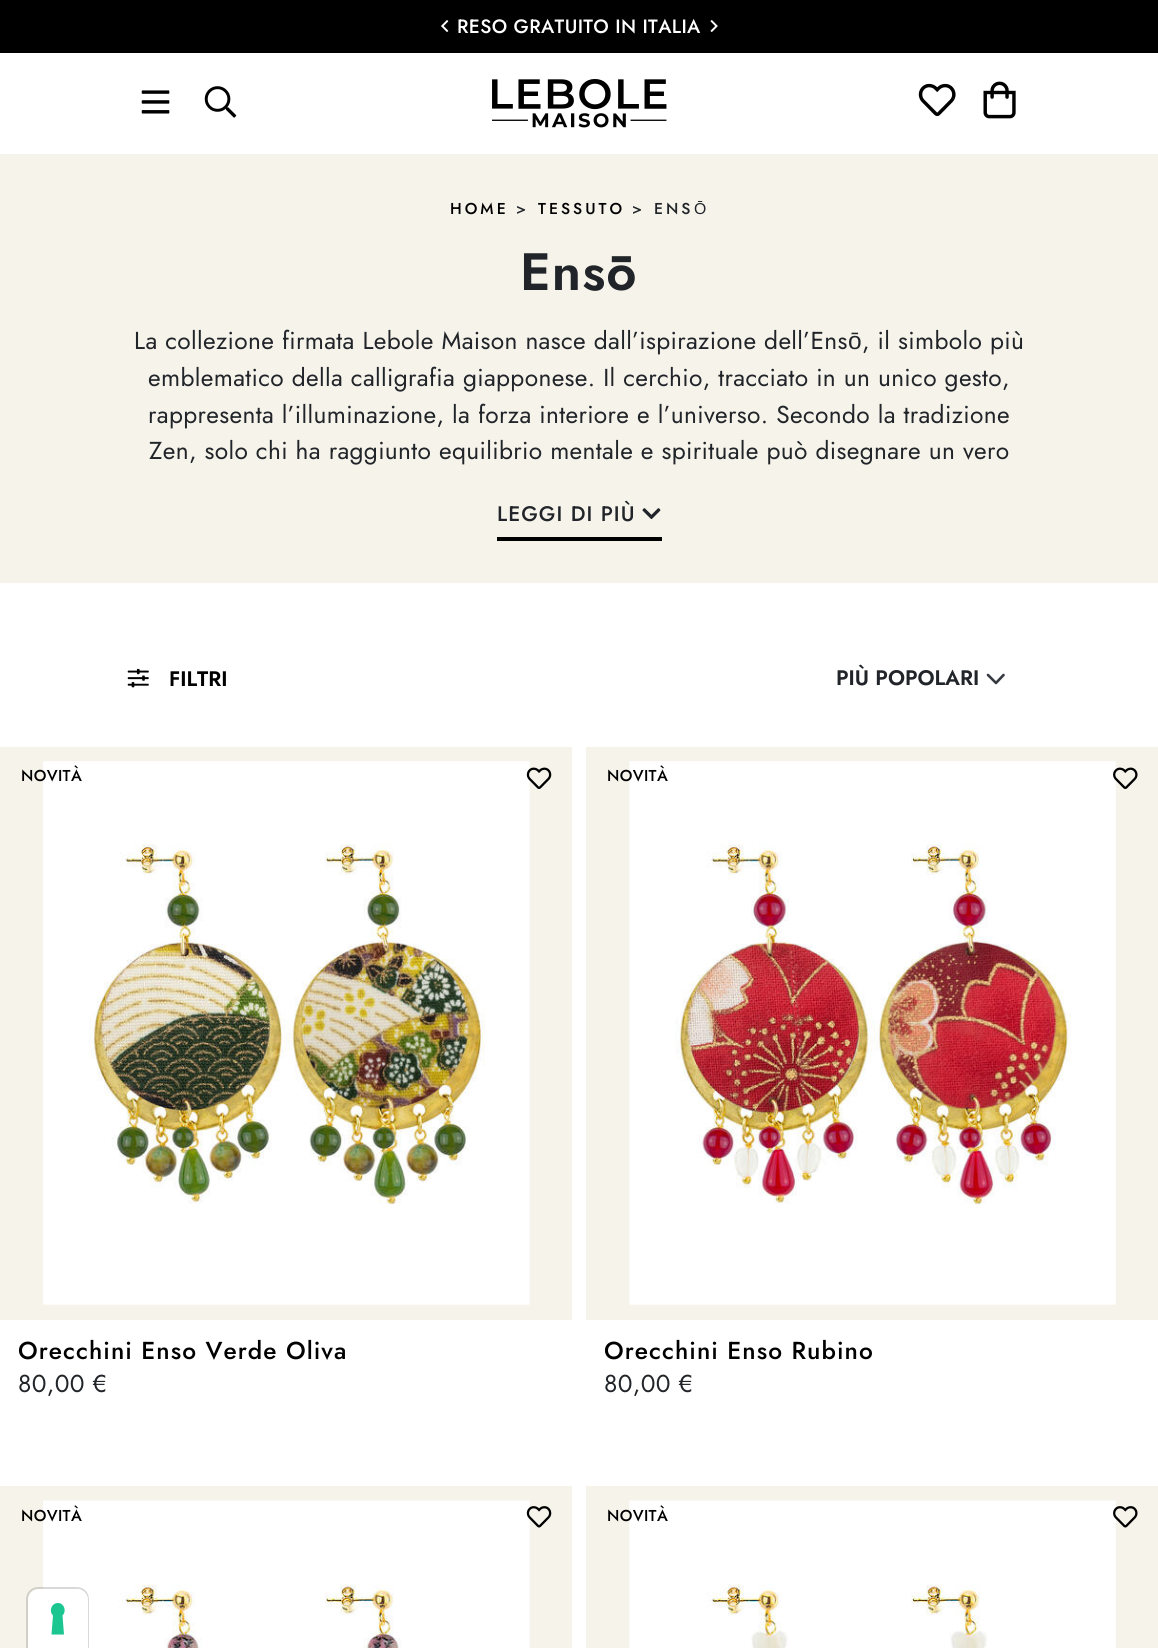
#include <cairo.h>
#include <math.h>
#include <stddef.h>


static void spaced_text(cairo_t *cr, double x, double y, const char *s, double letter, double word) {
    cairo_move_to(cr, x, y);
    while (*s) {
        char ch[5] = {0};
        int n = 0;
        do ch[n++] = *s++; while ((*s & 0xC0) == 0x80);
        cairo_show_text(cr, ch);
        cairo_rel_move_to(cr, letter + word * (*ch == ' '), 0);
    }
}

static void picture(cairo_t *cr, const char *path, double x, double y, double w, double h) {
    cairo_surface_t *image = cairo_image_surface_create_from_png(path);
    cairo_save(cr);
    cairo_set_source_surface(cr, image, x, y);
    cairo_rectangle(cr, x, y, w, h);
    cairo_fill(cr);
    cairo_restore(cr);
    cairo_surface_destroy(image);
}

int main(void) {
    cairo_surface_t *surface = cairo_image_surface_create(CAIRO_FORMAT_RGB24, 1158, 1648);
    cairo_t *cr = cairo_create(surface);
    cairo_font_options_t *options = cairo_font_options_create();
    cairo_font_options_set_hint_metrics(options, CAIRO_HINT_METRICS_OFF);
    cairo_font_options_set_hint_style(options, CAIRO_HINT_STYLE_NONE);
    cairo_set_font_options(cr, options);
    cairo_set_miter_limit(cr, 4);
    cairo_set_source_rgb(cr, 1, 1, 1);
    cairo_paint(cr);
    cairo_set_source_rgb(cr, 0, 0, 0);
    cairo_rectangle(cr, 0, 0, 1158, 53);
    cairo_fill(cr);
    picture(cr, "img1.png", 441, 20, 8, 12);
    cairo_select_font_face(cr, "Jost Medium", CAIRO_FONT_SLANT_NORMAL, CAIRO_FONT_WEIGHT_NORMAL);
    cairo_set_font_size(cr, 19.25);
    cairo_set_source_rgb(cr, 1, 1, 1);
    spaced_text(cr, 457, 33, "RESO GRATUITO IN ITALIA", 0.35, 0);
    picture(cr, "img2.png", 710, 20, 8, 12);
    picture(cr, "img3.png", 141, 90, 29, 24);
    picture(cr, "img4.png", 204, 86, 33, 32);
    picture(cr, "img5.png", 492, 79, 175, 49);
    picture(cr, "img6.png", 918, 83, 38, 33);
    picture(cr, "img7.png", 983, 81, 33, 38);
    cairo_set_source_rgb(cr, 0.961, 0.953, 0.918);
    cairo_rectangle(cr, 0, 154, 1158, 429);
    cairo_fill(cr);
    cairo_set_font_size(cr, 15.75);
    cairo_set_source_rgb(cr, 0, 0, 0);
    spaced_text(cr, 450, 214, "HOME", 3, 0);
    cairo_set_source_rgb(cr, 0.129, 0.145, 0.161);
    spaced_text(cr, 516, 214, ">", 3, 0);
    cairo_set_source_rgb(cr, 0, 0, 0);
    spaced_text(cr, 538, 214, "TESSUTO", 3, 0);
    cairo_set_source_rgb(cr, 0.129, 0.145, 0.161);
    spaced_text(cr, 632, 214, ">", 3, 0);
    spaced_text(cr, 654, 214, "ENS", 3, 0);
    cairo_select_font_face(cr, "Liberation Sans", CAIRO_FONT_SLANT_NORMAL, CAIRO_FONT_WEIGHT_NORMAL);
    spaced_text(cr, 694, 214, "Ō", 3, 0);
    cairo_select_font_face(cr, "Jost SemiBold", CAIRO_FONT_SLANT_NORMAL, CAIRO_FONT_WEIGHT_NORMAL);
    cairo_set_font_size(cr, 52.5);
    spaced_text(cr, 520, 290, "Ensō", 1.05, 0);
    cairo_select_font_face(cr, "Jost", CAIRO_FONT_SLANT_NORMAL, CAIRO_FONT_WEIGHT_NORMAL);
    cairo_set_font_size(cr, 24.5);
    spaced_text(cr, 134, 349, "La collezione firmata Lebole Maison nasce dall’ispirazione dell’Ens", 0.35, 0);
    cairo_select_font_face(cr, "Liberation Sans", CAIRO_FONT_SLANT_NORMAL, CAIRO_FONT_WEIGHT_NORMAL);
    spaced_text(cr, 848, 349, "ō", 0.35, 0);
    cairo_select_font_face(cr, "Jost", CAIRO_FONT_SLANT_NORMAL, CAIRO_FONT_WEIGHT_NORMAL);
    spaced_text(cr, 862, 349, ", il simbolo più", 0.35, 0);
    spaced_text(cr, 148, 386, "emblematico della calligrafia giapponese. Il cerchio, tracciato in un unico gesto,", 0.35, 0);
    spaced_text(cr, 148, 423, "rappresenta l’illuminazione, la forza interiore e l’universo. Secondo la tradizione", 0.35, 0);
    spaced_text(cr, 149, 459, "Zen, solo chi ha raggiunto equilibrio mentale e spirituale può disegnare un vero", 0.35, 0);
    cairo_select_font_face(cr, "Jost Medium", CAIRO_FONT_SLANT_NORMAL, CAIRO_FONT_WEIGHT_NORMAL);
    cairo_set_font_size(cr, 21);
    spaced_text(cr, 497, 521, "LEGGI DI PIÙ", 1.05, 0);
    picture(cr, "img8.png", 642, 508, 19, 12);
    cairo_set_source_rgb(cr, 0, 0, 0);
    cairo_rectangle(cr, 497, 537, 165, 4);
    cairo_fill(cr);
    picture(cr, "img9.png", 127, 668, 22, 20);
    cairo_select_font_face(cr, "Jost SemiBold", CAIRO_FONT_SLANT_NORMAL, CAIRO_FONT_WEIGHT_NORMAL);
    cairo_move_to(cr, 169, 686);
    cairo_show_text(cr, "FILTRI");
    cairo_new_path(cr);
    cairo_move_to(cr, 988, 675);
    cairo_line_to(cr, 996, 683);
    cairo_line_to(cr, 1003.5, 675);
    cairo_set_source_rgb(cr, 0.204, 0.227, 0.251);
    cairo_set_line_width(cr, 2.6);
    cairo_set_line_cap(cr, CAIRO_LINE_CAP_ROUND);
    cairo_set_line_join(cr, CAIRO_LINE_JOIN_ROUND);
    cairo_stroke(cr);
    cairo_set_source_rgb(cr, 0.129, 0.145, 0.161);
    cairo_move_to(cr, 836, 685);
    cairo_show_text(cr, "PIÙ POPOLARI");
    cairo_set_source_rgb(cr, 0.961, 0.953, 0.918);
    cairo_rectangle(cr, 0, 747, 572, 573);
    cairo_fill(cr);
    picture(cr, "img10.png", 43, 761, 487, 544);
    cairo_select_font_face(cr, "Jost Medium", CAIRO_FONT_SLANT_NORMAL, CAIRO_FONT_WEIGHT_NORMAL);
    cairo_set_font_size(cr, 15.75);
    cairo_set_source_rgb(cr, 0, 0, 0);
    spaced_text(cr, 21, 781, "NOVITÀ", 0.35, 0);
    picture(cr, "img11.png", 526, 767, 26, 22);
    cairo_set_font_size(cr, 24.5);
    spaced_text(cr, 18, 1359, "Orecchini Enso Verde Oliva", 1.05, 0);
    cairo_select_font_face(cr, "Jost", CAIRO_FONT_SLANT_NORMAL, CAIRO_FONT_WEIGHT_NORMAL);
    cairo_set_source_rgb(cr, 0.129, 0.145, 0.161);
    spaced_text(cr, 18, 1392, "80,00 €", 0.35, 0);
    cairo_set_source_rgb(cr, 0.961, 0.953, 0.918);
    cairo_rectangle(cr, 586, 747, 572, 573);
    cairo_fill(cr);
    picture(cr, "img12.png", 629, 761, 487, 544);
    cairo_select_font_face(cr, "Jost Medium", CAIRO_FONT_SLANT_NORMAL, CAIRO_FONT_WEIGHT_NORMAL);
    cairo_set_font_size(cr, 15.75);
    cairo_set_source_rgb(cr, 0, 0, 0);
    spaced_text(cr, 607, 781, "NOVITÀ", 0.35, 0);
    picture(cr, "img13.png", 1113, 767, 25, 22);
    cairo_set_font_size(cr, 24.5);
    spaced_text(cr, 604, 1359, "Orecchini Enso Rubino", 1.05, 0);
    cairo_select_font_face(cr, "Jost", CAIRO_FONT_SLANT_NORMAL, CAIRO_FONT_WEIGHT_NORMAL);
    cairo_set_source_rgb(cr, 0.129, 0.145, 0.161);
    spaced_text(cr, 604, 1392, "80,00 €", 0.35, 0);
    cairo_set_source_rgb(cr, 0.961, 0.953, 0.918);
    cairo_rectangle(cr, 0, 1486, 572, 162);
    cairo_fill(cr);
    picture(cr, "img14.png", 43, 1500, 487, 148);
    cairo_select_font_face(cr, "Jost Medium", CAIRO_FONT_SLANT_NORMAL, CAIRO_FONT_WEIGHT_NORMAL);
    cairo_set_font_size(cr, 15.75);
    cairo_set_source_rgb(cr, 0, 0, 0);
    spaced_text(cr, 21, 1521, "NOVITÀ", 0.35, 0);
    picture(cr, "img15.png", 526, 1506, 26, 22);
    cairo_set_source_rgb(cr, 0.961, 0.953, 0.918);
    cairo_rectangle(cr, 586, 1486, 572, 162);
    cairo_fill(cr);
    picture(cr, "img16.png", 629, 1500, 487, 148);
    cairo_set_source_rgb(cr, 0, 0, 0);
    spaced_text(cr, 607, 1521, "NOVITÀ", 0.35, 0);
    picture(cr, "img17.png", 1113, 1506, 25, 22);
    cairo_new_path(cr);
    cairo_move_to(cr, 38, 1588);
    cairo_line_to(cr, 77, 1588);
    cairo_curve_to(cr, 83, 1588, 88, 1593, 88, 1599);
    cairo_line_to(cr, 88, 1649);
    cairo_line_to(cr, 27, 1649);
    cairo_line_to(cr, 27, 1599);
    cairo_curve_to(cr, 27, 1593, 32, 1588, 38, 1588);
    cairo_close_path(cr);
    cairo_set_source_rgba(cr, 0, 0, 0, 0.15);
    cairo_set_line_width(cr, 2);
    cairo_set_line_cap(cr, CAIRO_LINE_CAP_BUTT);
    cairo_set_line_join(cr, CAIRO_LINE_JOIN_MITER);
    cairo_stroke(cr);
    cairo_set_source_rgb(cr, 1, 1, 1);
    cairo_new_path(cr);
    cairo_move_to(cr, 39, 1589);
    cairo_line_to(cr, 77, 1589);
    cairo_curve_to(cr, 83, 1589, 88, 1594, 88, 1600);
    cairo_line_to(cr, 88, 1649);
    cairo_line_to(cr, 28, 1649);
    cairo_line_to(cr, 28, 1600);
    cairo_curve_to(cr, 28, 1594, 33, 1589, 39, 1589);
    cairo_close_path(cr);
    cairo_fill(cr);
    cairo_set_source_rgb(cr, 0.11, 0.776, 0.569);
    cairo_set_fill_rule(cr, CAIRO_FILL_RULE_EVEN_ODD);
    cairo_new_path(cr);
    cairo_move_to(cr, 58, 1603);
    cairo_curve_to(cr, 64, 1603, 67, 1611, 62.5, 1615.5);
    cairo_line_to(cr, 64, 1634.5);
    cairo_line_to(cr, 51.5, 1634.5);
    cairo_line_to(cr, 53, 1615.5);
    cairo_curve_to(cr, 48.5, 1611, 51.5, 1603, 58, 1603);
    cairo_close_path(cr);
    cairo_fill(cr);
    cairo_surface_write_to_png(surface, "page.png");
    cairo_font_options_destroy(options);
    cairo_destroy(cr);
    cairo_surface_destroy(surface);
    return 0;
}
